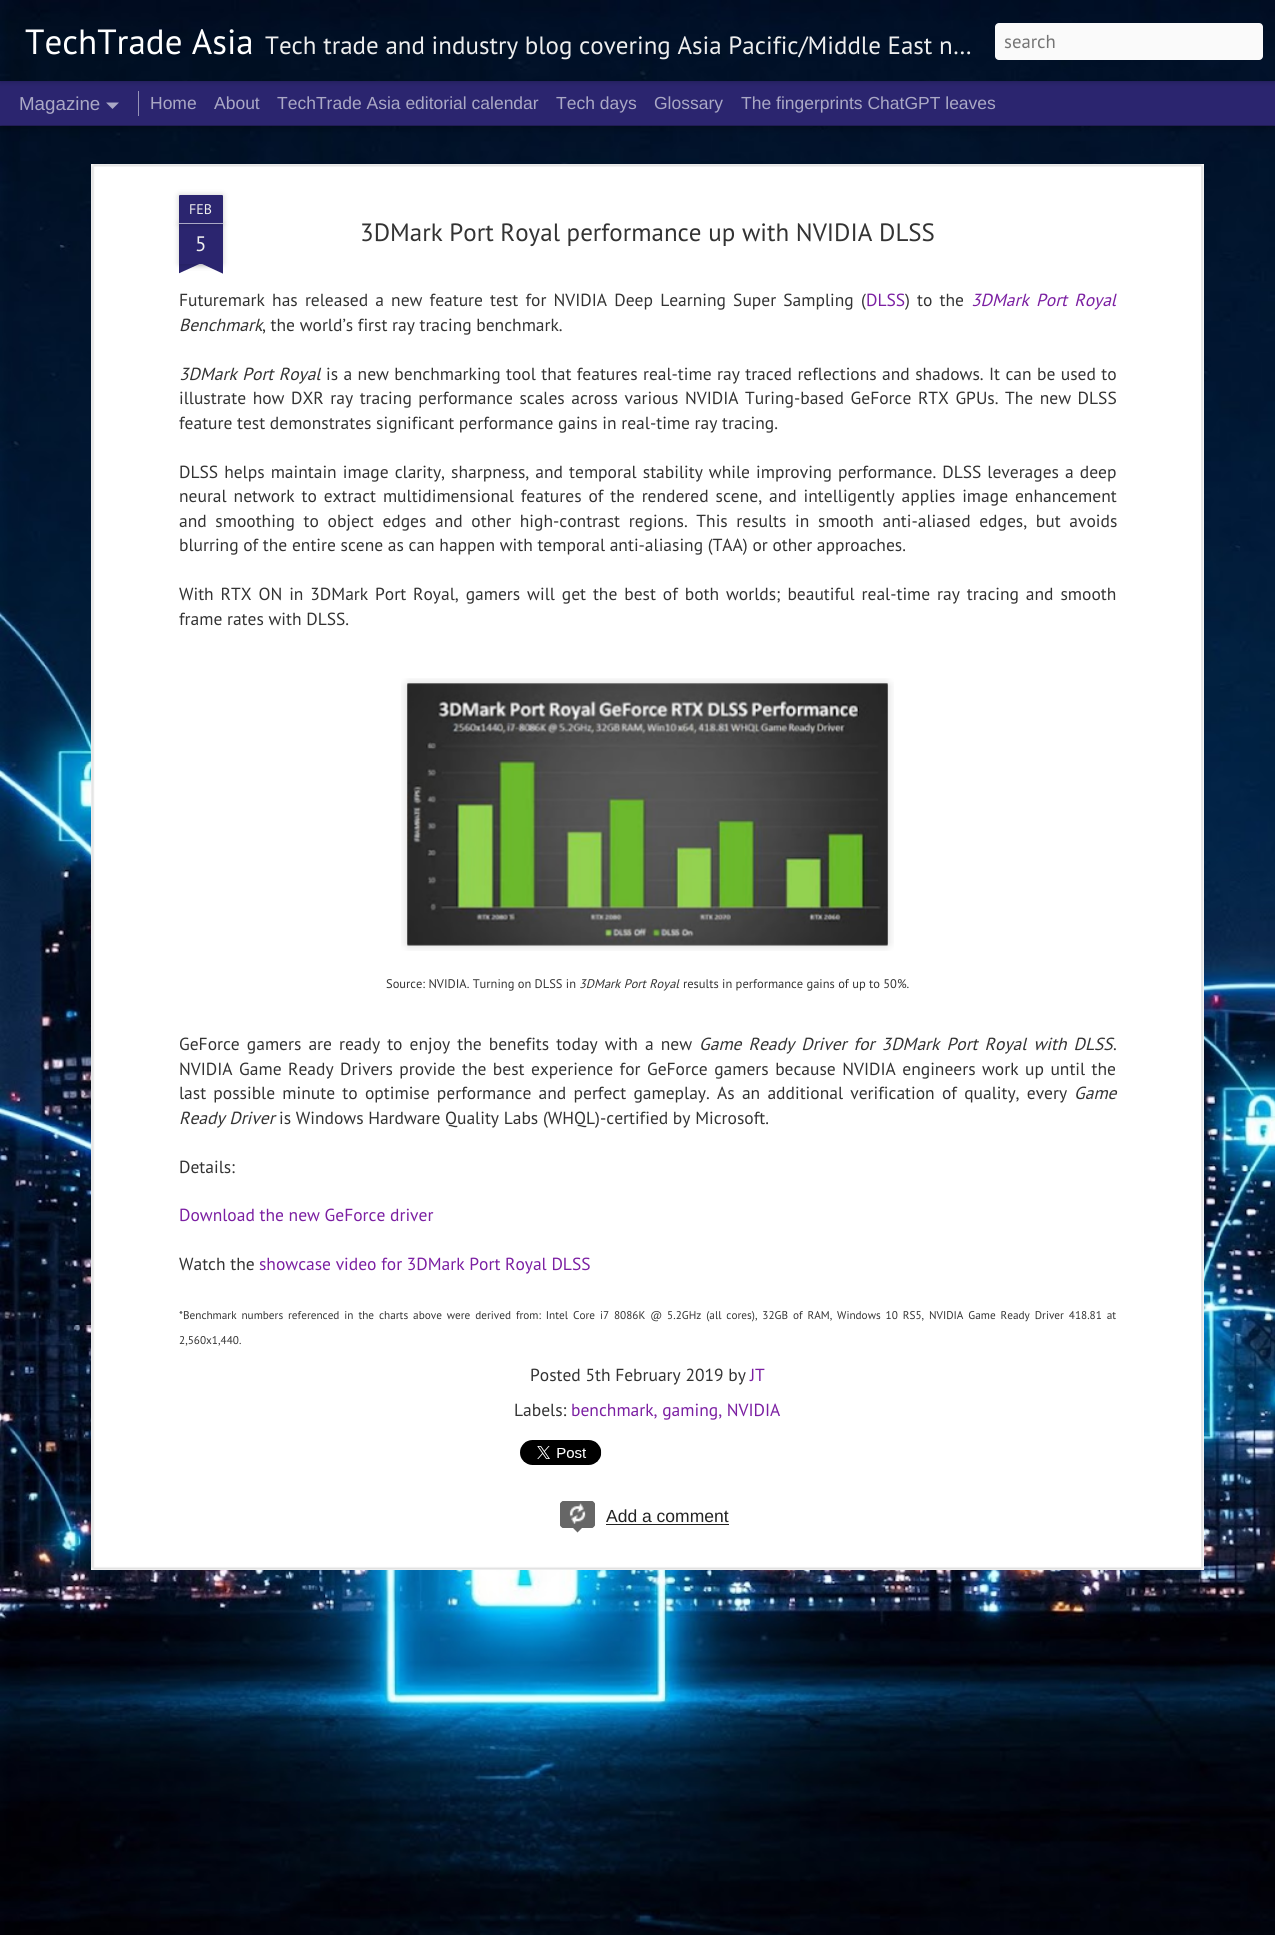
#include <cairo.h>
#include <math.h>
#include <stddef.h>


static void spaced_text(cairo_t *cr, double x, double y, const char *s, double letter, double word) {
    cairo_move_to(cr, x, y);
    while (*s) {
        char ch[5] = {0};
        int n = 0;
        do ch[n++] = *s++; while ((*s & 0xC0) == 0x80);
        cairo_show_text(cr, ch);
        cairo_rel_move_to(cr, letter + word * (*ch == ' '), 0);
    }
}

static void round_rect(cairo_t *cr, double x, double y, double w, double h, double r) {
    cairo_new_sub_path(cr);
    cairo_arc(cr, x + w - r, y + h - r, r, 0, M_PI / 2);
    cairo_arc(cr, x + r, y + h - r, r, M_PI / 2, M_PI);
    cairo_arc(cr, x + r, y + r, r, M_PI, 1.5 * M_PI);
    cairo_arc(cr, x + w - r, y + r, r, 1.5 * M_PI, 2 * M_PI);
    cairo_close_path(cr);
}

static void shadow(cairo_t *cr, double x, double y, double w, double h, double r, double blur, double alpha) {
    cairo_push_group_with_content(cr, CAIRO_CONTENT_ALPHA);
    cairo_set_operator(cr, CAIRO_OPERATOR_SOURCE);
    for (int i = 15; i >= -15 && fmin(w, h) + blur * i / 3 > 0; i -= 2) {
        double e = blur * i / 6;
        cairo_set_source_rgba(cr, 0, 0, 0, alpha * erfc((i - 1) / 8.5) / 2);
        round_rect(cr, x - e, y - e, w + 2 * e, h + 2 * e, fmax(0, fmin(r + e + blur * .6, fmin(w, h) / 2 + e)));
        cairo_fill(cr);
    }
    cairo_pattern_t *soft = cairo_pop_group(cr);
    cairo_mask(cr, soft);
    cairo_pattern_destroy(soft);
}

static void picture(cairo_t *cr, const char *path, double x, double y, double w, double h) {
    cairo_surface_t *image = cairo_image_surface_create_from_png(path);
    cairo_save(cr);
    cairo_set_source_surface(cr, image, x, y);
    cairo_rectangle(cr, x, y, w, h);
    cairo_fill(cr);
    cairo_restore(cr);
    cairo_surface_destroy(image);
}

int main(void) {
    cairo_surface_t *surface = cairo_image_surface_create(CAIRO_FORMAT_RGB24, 1275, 1935);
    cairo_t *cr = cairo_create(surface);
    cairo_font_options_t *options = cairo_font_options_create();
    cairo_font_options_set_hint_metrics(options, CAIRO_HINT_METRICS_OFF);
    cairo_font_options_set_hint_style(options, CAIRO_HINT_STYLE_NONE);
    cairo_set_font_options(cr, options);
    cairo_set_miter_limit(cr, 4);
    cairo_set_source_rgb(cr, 0.169, 0.145, 0.435);
    cairo_paint(cr);
    picture(cr, "img2.png", 0, 126, 1275, 1809);
    cairo_set_source_rgb(cr, 0, 0, 0);
    shadow(cr, 0, 81, 1275, 44, 0, 5, 0.5);
    cairo_set_source_rgb(cr, 0.169, 0.145, 0.435);
    cairo_rectangle(cr, 0, 81, 1275, 44);
    cairo_fill(cr);
    cairo_set_source_rgb(cr, 0, 0, 0);
    shadow(cr, 0, 0, 1275, 81, 0, 3, 0.3);
    picture(cr, "img1.png", 0, 0, 1275, 81);
    cairo_select_font_face(cr, "PT Sans", CAIRO_FONT_SLANT_NORMAL, CAIRO_FONT_WEIGHT_NORMAL);
    cairo_set_font_size(cr, 35);
    cairo_set_source_rgb(cr, 1, 1, 1);
    cairo_move_to(cr, 25, 54);
    cairo_show_text(cr, "TechTrade Asia");
    cairo_set_font_size(cr, 25);
    cairo_set_source_rgb(cr, 0.933, 0.933, 0.933);
    cairo_move_to(cr, 265, 54);
    cairo_show_text(cr, "Tech trade and industry blog covering Asia Pacific/Middle East n…");
    cairo_set_source_rgb(cr, 0.98, 0.98, 0.98);
    round_rect(cr, 995, 23, 268, 37, 4);
    cairo_fill(cr);
    cairo_set_font_size(cr, 18.75);
    cairo_set_source_rgb(cr, 0.459, 0.459, 0.459);
    cairo_move_to(cr, 1004, 48);
    cairo_show_text(cr, "search");
    cairo_select_font_face(cr, "Liberation Sans", CAIRO_FONT_SLANT_NORMAL, CAIRO_FONT_WEIGHT_NORMAL);
    cairo_set_source_rgb(cr, 0.667, 0.659, 0.773);
    cairo_move_to(cr, 19, 110);
    cairo_show_text(cr, "Magazine");
    cairo_new_path(cr);
    cairo_move_to(cr, 106, 102.5);
    cairo_line_to(cr, 119, 102.5);
    cairo_line_to(cr, 112.5, 109);
    cairo_close_path(cr);
    cairo_fill(cr);
    cairo_set_source_rgb(cr, 0.584, 0.573, 0.718);
    cairo_rectangle(cr, 138, 91, 1, 25);
    cairo_fill(cr);
    cairo_set_font_size(cr, 17.5);
    cairo_set_source_rgb(cr, 0.667, 0.659, 0.773);
    cairo_move_to(cr, 150, 109);
    cairo_show_text(cr, "Home");
    cairo_move_to(cr, 214, 109);
    cairo_show_text(cr, "About");
    cairo_move_to(cr, 277, 109);
    cairo_show_text(cr, "TechTrade Asia editorial calendar");
    cairo_move_to(cr, 556, 109);
    cairo_show_text(cr, "Tech days");
    cairo_move_to(cr, 654, 109);
    cairo_show_text(cr, "Glossary");
    cairo_move_to(cr, 741, 109);
    cairo_show_text(cr, "The fingerprints ChatGPT leaves");
    cairo_set_source_rgb(cr, 1, 1, 1);
    cairo_rectangle(cr, 91, 164, 1113, 1406);
    cairo_fill(cr);
    picture(cr, "img3.png", 91, 164, 1113, 1406);
    cairo_set_source_rgb(cr, 0, 0, 0);
    shadow(cr, 179, 224, 44, 40, 0, 3, 0.2);
    cairo_set_source_rgb(cr, 0.169, 0.145, 0.435);
    cairo_rectangle(cr, 179, 224, 44, 40);
    cairo_fill(cr);
    cairo_set_source_rgb(cr, 0, 0, 0);
    shadow(cr, 179, 195, 44, 29, 1, 3, 0.2);
    cairo_set_source_rgb(cr, 0.169, 0.145, 0.435);
    cairo_new_path(cr);
    cairo_move_to(cr, 180, 195);
    cairo_line_to(cr, 222, 195);
    cairo_curve_to(cr, 222.5, 195, 223, 195.5, 223, 196);
    cairo_line_to(cr, 223, 224);
    cairo_line_to(cr, 179, 224);
    cairo_line_to(cr, 179, 196);
    cairo_curve_to(cr, 179, 195.5, 179.5, 195, 180, 195);
    cairo_close_path(cr);
    cairo_fill(cr);
    cairo_set_source_rgb(cr, 0.667, 0.659, 0.773);
    cairo_rectangle(cr, 179, 223, 44, 1);
    cairo_fill(cr);
    cairo_select_font_face(cr, "PT Sans", CAIRO_FONT_SLANT_NORMAL, CAIRO_FONT_WEIGHT_NORMAL);
    cairo_set_font_size(cr, 14);
    cairo_set_source_rgb(cr, 0.933, 0.933, 0.933);
    cairo_move_to(cr, 189, 214);
    cairo_show_text(cr, "FEB");
    cairo_set_font_size(cr, 21);
    cairo_move_to(cr, 195, 251);
    cairo_show_text(cr, "5");
    cairo_save(cr);
    cairo_rectangle(cr, 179, 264, 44, 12);
    cairo_clip(cr);
    cairo_set_source_rgb(cr, 0, 0, 0);
    shadow(cr, 168, 251, 62, 13, 0, 3, 0.2);
    cairo_restore(cr);
    cairo_save(cr);
    cairo_rectangle(cr, 179, 264, 44, 12);
    cairo_clip(cr);
    cairo_set_source_rgb(cr, 0.169, 0.145, 0.435);
    cairo_new_path(cr);
    cairo_move_to(cr, 168, 265);
    cairo_line_to(cr, 224, 239);
    cairo_line_to(cr, 230, 250);
    cairo_line_to(cr, 173, 276);
    cairo_close_path(cr);
    cairo_fill(cr);
    cairo_restore(cr);
    cairo_save(cr);
    cairo_rectangle(cr, 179, 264, 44, 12);
    cairo_clip(cr);
    cairo_set_source_rgb(cr, 0, 0, 0);
    shadow(cr, 171, 251, 63, 13, 0, 3, 0.2);
    cairo_restore(cr);
    cairo_save(cr);
    cairo_rectangle(cr, 179, 264, 44, 12);
    cairo_clip(cr);
    cairo_set_source_rgb(cr, 0.169, 0.145, 0.435);
    cairo_new_path(cr);
    cairo_move_to(cr, 177, 239);
    cairo_line_to(cr, 233, 265);
    cairo_line_to(cr, 228, 276);
    cairo_line_to(cr, 172, 250);
    cairo_close_path(cr);
    cairo_fill(cr);
    cairo_restore(cr);
    cairo_set_font_size(cr, 25);
    cairo_set_source_rgb(cr, 0.2, 0.2, 0.2);
    cairo_move_to(cr, 360, 241);
    cairo_show_text(cr, "3DMark Port Royal performance up with NVIDIA DLSS");
    cairo_set_font_size(cr, 17.5);
    spaced_text(cr, 179, 306, "Futuremark has released a new feature test for NVIDIA Deep Learning Super Sampling (", 0, 2.5);
    cairo_set_source_rgb(cr, 0.482, 0.122, 0.635);
    cairo_move_to(cr, 866, 306);
    cairo_show_text(cr, "DLSS");
    cairo_set_source_rgb(cr, 0.2, 0.2, 0.2);
    cairo_move_to(cr, 905, 306);
    cairo_show_text(cr, ")");
    spaced_text(cr, 917, 306, "to the", 0, 2.5);
    cairo_select_font_face(cr, "PT Sans", CAIRO_FONT_SLANT_ITALIC, CAIRO_FONT_WEIGHT_NORMAL);
    cairo_set_source_rgb(cr, 0.482, 0.122, 0.635);
    cairo_move_to(cr, 971, 306);
    cairo_show_text(cr, "3DMark");
    spaced_text(cr, 1036, 306, "Port Royal", 0, 2.5);
    cairo_set_source_rgb(cr, 0.2, 0.2, 0.2);
    cairo_move_to(cr, 179, 331);
    cairo_show_text(cr, "Benchmark");
    cairo_select_font_face(cr, "PT Sans", CAIRO_FONT_SLANT_NORMAL, CAIRO_FONT_WEIGHT_NORMAL);
    cairo_move_to(cr, 262, 331);
    cairo_show_text(cr, ", the world’s first ray tracing benchmark.");
    cairo_select_font_face(cr, "PT Sans", CAIRO_FONT_SLANT_ITALIC, CAIRO_FONT_WEIGHT_NORMAL);
    spaced_text(cr, 179, 380, "3DMark Port Royal", 0, 0.75);
    cairo_select_font_face(cr, "PT Sans", CAIRO_FONT_SLANT_NORMAL, CAIRO_FONT_WEIGHT_NORMAL);
    spaced_text(cr, 326, 380, "is a new benchmarking tool that features real-time ray traced reflections and shadows. It can be used to", 0, 0.75);
    spaced_text(cr, 179, 404, "illustrate how DXR ray tracing performance scales across various NVIDIA Turing-based GeForce RTX GPUs. The new DLSS", 0, 1.9);
    cairo_move_to(cr, 179, 429);
    cairo_show_text(cr, "feature test demonstrates significant performance gains in real-time ray tracing.");
    spaced_text(cr, 179, 478, "DLSS helps maintain image clarity, sharpness, and temporal stability while improving performance. DLSS leverages a deep", 0, 1.4);
    spaced_text(cr, 179, 502, "neural network to extract multidimensional features of the rendered scene, and intelligently applies image enhancement", 0, 2.25);
    spaced_text(cr, 179, 527, "and smoothing to object edges and other high-contrast regions. This results in smooth anti-aliased edges, but avoids", 0, 4);
    cairo_move_to(cr, 179, 551);
    cairo_show_text(cr, "blurring of the entire scene as can happen with temporal anti-aliasing (TAA) or other approaches.");
    spaced_text(cr, 179, 600, "With RTX ON in 3DMark Port Royal, gamers will get the best of both worlds; beautiful real-time ray tracing and smooth", 0, 2.25);
    cairo_move_to(cr, 179, 625);
    cairo_show_text(cr, "frame rates with DLSS.");
    picture(cr, "img4.png", 401, 678, 493, 273);
    picture(cr, "img5.png", 407, 683, 481, 263);
    cairo_set_font_size(cr, 12.5);
    cairo_move_to(cr, 386, 988);
    cairo_show_text(cr, "Source: NVIDIA. Turning on DLSS in");
    cairo_select_font_face(cr, "PT Sans", CAIRO_FONT_SLANT_ITALIC, CAIRO_FONT_WEIGHT_NORMAL);
    cairo_move_to(cr, 579, 988);
    cairo_show_text(cr, "3DMark Port Royal");
    cairo_select_font_face(cr, "PT Sans", CAIRO_FONT_SLANT_NORMAL, CAIRO_FONT_WEIGHT_NORMAL);
    cairo_move_to(cr, 683, 988);
    cairo_show_text(cr, "results in performance gains of up to 50%.");
    cairo_set_font_size(cr, 17.5);
    spaced_text(cr, 179, 1050, "GeForce gamers are ready to enjoy the benefits today with a new", 0, 2.4);
    cairo_select_font_face(cr, "PT Sans", CAIRO_FONT_SLANT_ITALIC, CAIRO_FONT_WEIGHT_NORMAL);
    spaced_text(cr, 699, 1050, "Game Ready Driver for 3DMark Port Royal with DLSS", 0, 2.4);
    cairo_select_font_face(cr, "PT Sans", CAIRO_FONT_SLANT_NORMAL, CAIRO_FONT_WEIGHT_NORMAL);
    cairo_move_to(cr, 1113, 1050);
    cairo_show_text(cr, ".");
    spaced_text(cr, 179, 1075, "NVIDIA Game Ready Drivers provide the best experience for GeForce gamers because NVIDIA engineers work up until the", 0, 1.8);
    spaced_text(cr, 179, 1099, "last possible minute to optimise performance and perfect gameplay. As an additional verification of quality, every", 0, 2.6);
    cairo_select_font_face(cr, "PT Sans", CAIRO_FONT_SLANT_ITALIC, CAIRO_FONT_WEIGHT_NORMAL);
    cairo_move_to(cr, 1074, 1099);
    cairo_show_text(cr, "Game");
    cairo_move_to(cr, 179, 1124);
    cairo_show_text(cr, "Ready Driver");
    cairo_select_font_face(cr, "PT Sans", CAIRO_FONT_SLANT_NORMAL, CAIRO_FONT_WEIGHT_NORMAL);
    cairo_move_to(cr, 279, 1124);
    cairo_show_text(cr, "is Windows Hardware Quality Labs (WHQL)-certified by Microsoft.");
    cairo_move_to(cr, 179, 1173);
    cairo_show_text(cr, "Details:");
    cairo_set_source_rgb(cr, 0.482, 0.122, 0.635);
    cairo_move_to(cr, 179, 1221);
    cairo_show_text(cr, "Download the new GeForce driver");
    cairo_set_source_rgb(cr, 0.2, 0.2, 0.2);
    cairo_move_to(cr, 179, 1270);
    cairo_show_text(cr, "Watch the");
    cairo_set_source_rgb(cr, 0.482, 0.122, 0.635);
    cairo_move_to(cr, 259, 1270);
    cairo_show_text(cr, "showcase video for 3DMark Port Royal DLSS");
    cairo_set_font_size(cr, 11.25);
    cairo_set_source_rgb(cr, 0.2, 0.2, 0.2);
    spaced_text(cr, 179, 1319, "*Benchmark numbers referenced in the charts above were derived from: Intel Core i7 8086K @ 5.2GHz (all cores), 32GB of RAM, Windows 10 RS5, NVIDIA Game Ready Driver 418.81 at", 0, 1.9);
    cairo_move_to(cr, 179, 1344);
    cairo_show_text(cr, "2,560x1,440.");
    cairo_set_font_size(cr, 17.5);
    cairo_move_to(cr, 530, 1381);
    cairo_show_text(cr, "Posted 5th February 2019 by");
    cairo_set_source_rgb(cr, 0.482, 0.122, 0.635);
    cairo_move_to(cr, 750, 1381);
    cairo_show_text(cr, "JT");
    cairo_set_source_rgb(cr, 0.2, 0.2, 0.2);
    cairo_move_to(cr, 514, 1416);
    cairo_show_text(cr, "Labels:");
    cairo_set_source_rgb(cr, 0.482, 0.122, 0.635);
    cairo_move_to(cr, 571, 1416);
    cairo_show_text(cr, "benchmark, gaming, NVIDIA");
    picture(cr, "img6.png", 520, 1440, 82, 25);
    cairo_set_source_rgb(cr, 0.4, 0.4, 0.4);
    round_rect(cr, 560, 1501, 35, 27, 4);
    cairo_fill(cr);
    picture(cr, "img7.png", 569, 1503, 17, 21);
    round_rect(cr, 560.5, 1501.5, 34, 26, 3.5);
    cairo_set_line_width(cr, 1);
    cairo_stroke(cr);
    cairo_new_path(cr);
    cairo_move_to(cr, 571, 1526);
    cairo_line_to(cr, 584, 1526);
    cairo_line_to(cr, 577.5, 1532.5);
    cairo_close_path(cr);
    cairo_fill(cr);
    cairo_select_font_face(cr, "Liberation Sans", CAIRO_FONT_SLANT_NORMAL, CAIRO_FONT_WEIGHT_NORMAL);
    cairo_set_source_rgb(cr, 0.133, 0.133, 0.133);
    cairo_move_to(cr, 606, 1522);
    cairo_show_text(cr, "Add a comment");
    cairo_rectangle(cr, 606, 1524, 123, 1);
    cairo_fill(cr);
    cairo_surface_write_to_png(surface, "page.png");
    cairo_font_options_destroy(options);
    cairo_destroy(cr);
    cairo_surface_destroy(surface);
    return 0;
}
